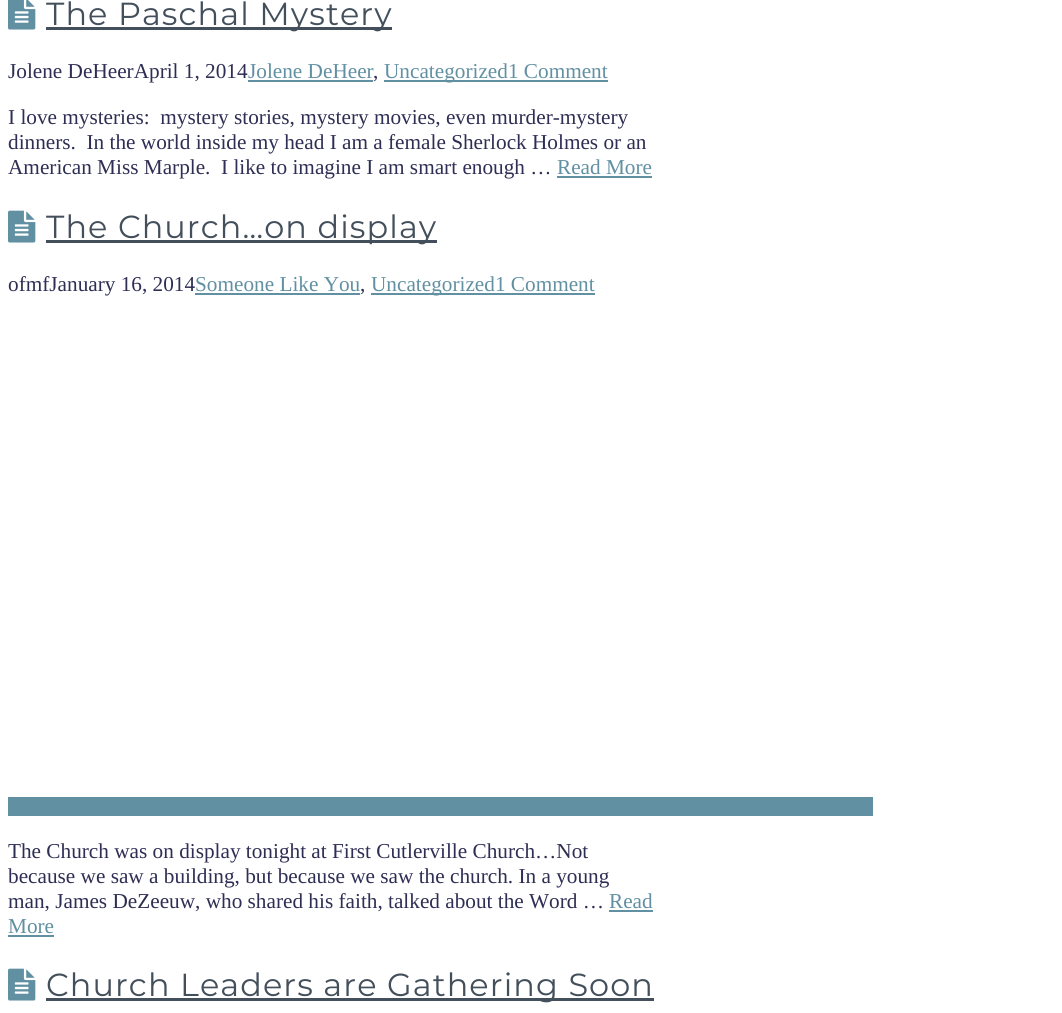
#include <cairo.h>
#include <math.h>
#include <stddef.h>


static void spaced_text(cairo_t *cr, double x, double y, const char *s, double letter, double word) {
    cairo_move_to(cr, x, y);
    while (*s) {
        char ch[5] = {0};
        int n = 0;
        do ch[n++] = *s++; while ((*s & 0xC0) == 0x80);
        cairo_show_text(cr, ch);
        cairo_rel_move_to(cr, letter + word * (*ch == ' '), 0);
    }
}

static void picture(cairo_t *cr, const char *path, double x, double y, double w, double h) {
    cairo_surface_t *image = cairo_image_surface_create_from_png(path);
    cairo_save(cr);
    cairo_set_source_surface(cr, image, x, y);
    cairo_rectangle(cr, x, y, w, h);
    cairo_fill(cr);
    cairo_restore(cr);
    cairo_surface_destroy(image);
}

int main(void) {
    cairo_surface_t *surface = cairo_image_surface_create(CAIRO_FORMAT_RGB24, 1062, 1013);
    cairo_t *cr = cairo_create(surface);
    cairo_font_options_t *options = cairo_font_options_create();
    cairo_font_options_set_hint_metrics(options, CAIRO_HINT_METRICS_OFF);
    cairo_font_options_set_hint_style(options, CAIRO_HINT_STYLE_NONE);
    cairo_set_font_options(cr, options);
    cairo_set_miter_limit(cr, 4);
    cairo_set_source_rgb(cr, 1, 1, 1);
    cairo_paint(cr);
    picture(cr, "img1.png", 8, 0, 28, 30);
    cairo_set_source_rgb(cr, 0.263, 0.31, 0.357);
    cairo_rectangle(cr, 46, 27, 346, 3);
    cairo_fill(cr);
    cairo_select_font_face(cr, "Montserrat Thin", CAIRO_FONT_SLANT_NORMAL, CAIRO_FONT_WEIGHT_NORMAL);
    cairo_set_font_size(cr, 31.9);
    spaced_text(cr, 46, 25, "The Paschal Mystery", 1.1, 0);
    cairo_select_font_face(cr, "Liberation Serif", CAIRO_FONT_SLANT_NORMAL, CAIRO_FONT_WEIGHT_NORMAL);
    cairo_set_font_size(cr, 21.25);
    cairo_set_source_rgb(cr, 0.18, 0.18, 0.333);
    cairo_move_to(cr, 8, 78);
    cairo_show_text(cr, "Jolene DeHeerApril 1, 2014");
    cairo_set_source_rgb(cr, 0.38, 0.565, 0.635);
    cairo_move_to(cr, 248, 78);
    cairo_show_text(cr, "Jolene DeHeer");
    cairo_set_source_rgb(cr, 0.18, 0.18, 0.333);
    cairo_move_to(cr, 373, 78);
    cairo_show_text(cr, ",");
    cairo_set_source_rgb(cr, 0.38, 0.565, 0.635);
    cairo_rectangle(cr, 248, 80, 125, 2);
    cairo_fill(cr);
    cairo_rectangle(cr, 384, 80, 224, 2);
    cairo_fill(cr);
    cairo_move_to(cr, 384, 78);
    cairo_show_text(cr, "Uncategorized1 Comment");
    cairo_set_source_rgb(cr, 0.18, 0.18, 0.333);
    cairo_move_to(cr, 8, 124);
    cairo_show_text(cr, "I love mysteries:  mystery stories, mystery movies, even murder-mystery");
    cairo_move_to(cr, 8, 149);
    cairo_show_text(cr, "dinners.  In the world inside my head I am a female Sherlock Holmes or an");
    cairo_move_to(cr, 8, 174);
    cairo_show_text(cr, "American Miss Marple.  I like to imagine I am smart enough …");
    cairo_set_source_rgb(cr, 0.38, 0.565, 0.635);
    cairo_move_to(cr, 557, 174);
    cairo_show_text(cr, "Read More");
    cairo_rectangle(cr, 557, 176, 95, 2);
    cairo_fill(cr);
    picture(cr, "img2.png", 8, 210, 28, 33);
    cairo_set_source_rgb(cr, 0.263, 0.31, 0.357);
    cairo_rectangle(cr, 46, 240, 391, 3);
    cairo_fill(cr);
    cairo_select_font_face(cr, "Montserrat Thin", CAIRO_FONT_SLANT_NORMAL, CAIRO_FONT_WEIGHT_NORMAL);
    cairo_set_font_size(cr, 31.9);
    spaced_text(cr, 46, 238, "The Church…on display", 1.1, 0);
    cairo_select_font_face(cr, "Liberation Serif", CAIRO_FONT_SLANT_NORMAL, CAIRO_FONT_WEIGHT_NORMAL);
    cairo_set_font_size(cr, 21.25);
    cairo_set_source_rgb(cr, 0.18, 0.18, 0.333);
    cairo_move_to(cr, 8, 291);
    cairo_show_text(cr, "ofmfJanuary 16, 2014");
    cairo_set_source_rgb(cr, 0.38, 0.565, 0.635);
    cairo_move_to(cr, 195, 291);
    cairo_show_text(cr, "Someone Like You");
    cairo_set_source_rgb(cr, 0.18, 0.18, 0.333);
    cairo_move_to(cr, 360, 291);
    cairo_show_text(cr, ",");
    cairo_set_source_rgb(cr, 0.38, 0.565, 0.635);
    cairo_rectangle(cr, 195, 293, 165, 2);
    cairo_fill(cr);
    cairo_rectangle(cr, 371, 293, 224, 2);
    cairo_fill(cr);
    cairo_move_to(cr, 371, 291);
    cairo_show_text(cr, "Uncategorized1 Comment");
    cairo_rectangle(cr, 8, 797, 865, 19);
    cairo_fill(cr);
    cairo_set_source_rgb(cr, 0.18, 0.18, 0.333);
    cairo_move_to(cr, 8, 858);
    cairo_show_text(cr, "The Church was on display tonight at First Cutlerville Church…Not");
    cairo_move_to(cr, 8, 883);
    cairo_show_text(cr, "because we saw a building, but because we saw the church. In a young");
    cairo_move_to(cr, 8, 908);
    cairo_show_text(cr, "man, James DeZeeuw, who shared his faith, talked about the Word …");
    cairo_set_source_rgb(cr, 0.38, 0.565, 0.635);
    cairo_move_to(cr, 609, 908);
    cairo_show_text(cr, "Read");
    cairo_rectangle(cr, 609, 910, 44, 2);
    cairo_fill(cr);
    cairo_move_to(cr, 8, 933);
    cairo_show_text(cr, "More");
    cairo_rectangle(cr, 8, 935, 46, 2);
    cairo_fill(cr);
    picture(cr, "img2.png", 8, 968, 28, 33);
    cairo_set_source_rgb(cr, 0.263, 0.31, 0.357);
    cairo_rectangle(cr, 46, 998, 608, 3);
    cairo_fill(cr);
    cairo_select_font_face(cr, "Montserrat Thin", CAIRO_FONT_SLANT_NORMAL, CAIRO_FONT_WEIGHT_NORMAL);
    cairo_set_font_size(cr, 31.9);
    spaced_text(cr, 46, 996, "Church Leaders are Gathering Soon", 1.1, 0);
    cairo_surface_write_to_png(surface, "page.png");
    cairo_font_options_destroy(options);
    cairo_destroy(cr);
    cairo_surface_destroy(surface);
    return 0;
}
